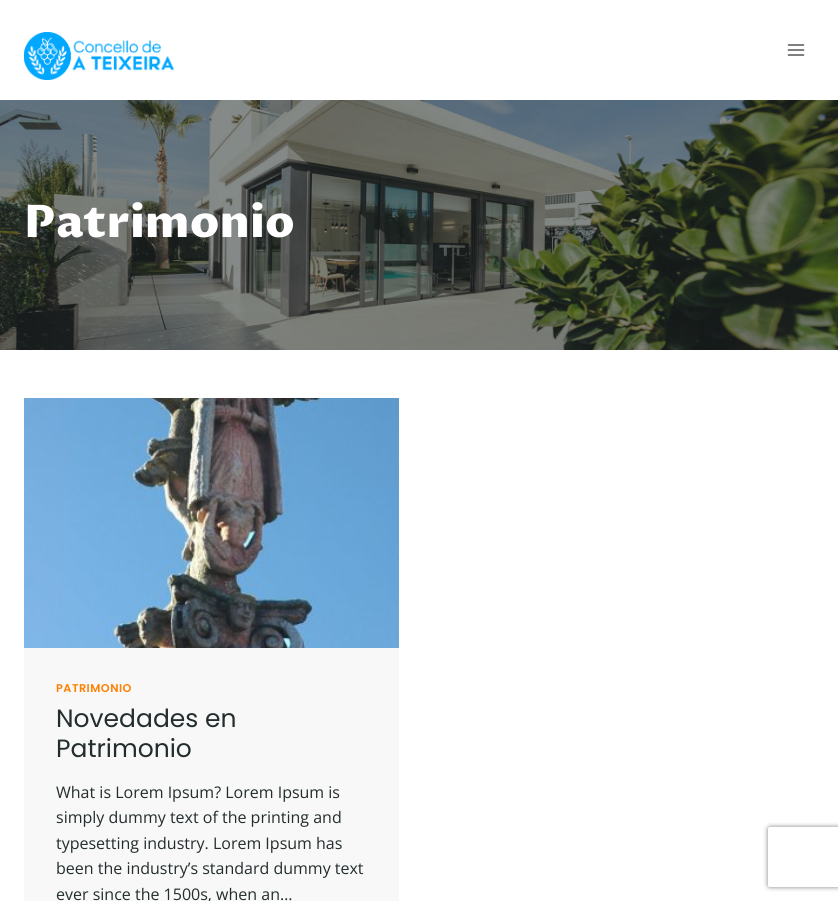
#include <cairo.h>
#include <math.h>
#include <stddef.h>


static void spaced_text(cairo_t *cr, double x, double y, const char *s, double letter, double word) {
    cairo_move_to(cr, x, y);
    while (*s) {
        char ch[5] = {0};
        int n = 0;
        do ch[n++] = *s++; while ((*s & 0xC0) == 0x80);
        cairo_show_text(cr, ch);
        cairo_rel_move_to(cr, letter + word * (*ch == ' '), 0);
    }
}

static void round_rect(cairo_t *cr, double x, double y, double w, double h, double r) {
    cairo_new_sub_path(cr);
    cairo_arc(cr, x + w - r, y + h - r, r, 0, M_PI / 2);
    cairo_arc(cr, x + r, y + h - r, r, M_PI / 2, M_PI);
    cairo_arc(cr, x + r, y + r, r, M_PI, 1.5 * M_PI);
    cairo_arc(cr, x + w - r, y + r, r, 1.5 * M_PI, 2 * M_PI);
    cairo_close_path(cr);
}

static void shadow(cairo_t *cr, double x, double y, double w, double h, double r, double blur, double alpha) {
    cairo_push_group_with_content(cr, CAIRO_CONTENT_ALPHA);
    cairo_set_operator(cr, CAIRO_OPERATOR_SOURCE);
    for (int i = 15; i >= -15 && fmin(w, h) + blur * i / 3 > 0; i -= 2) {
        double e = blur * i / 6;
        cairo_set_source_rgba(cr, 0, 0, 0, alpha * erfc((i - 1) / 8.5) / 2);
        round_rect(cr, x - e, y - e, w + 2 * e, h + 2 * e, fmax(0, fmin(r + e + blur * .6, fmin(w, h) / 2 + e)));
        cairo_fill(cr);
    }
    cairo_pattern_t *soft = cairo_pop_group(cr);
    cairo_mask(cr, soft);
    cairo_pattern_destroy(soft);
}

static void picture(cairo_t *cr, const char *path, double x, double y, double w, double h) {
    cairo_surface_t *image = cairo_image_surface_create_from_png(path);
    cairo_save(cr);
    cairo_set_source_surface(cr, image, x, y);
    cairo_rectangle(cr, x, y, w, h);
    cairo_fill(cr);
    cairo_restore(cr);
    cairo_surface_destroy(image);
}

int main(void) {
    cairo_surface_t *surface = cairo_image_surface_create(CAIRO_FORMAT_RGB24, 838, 901);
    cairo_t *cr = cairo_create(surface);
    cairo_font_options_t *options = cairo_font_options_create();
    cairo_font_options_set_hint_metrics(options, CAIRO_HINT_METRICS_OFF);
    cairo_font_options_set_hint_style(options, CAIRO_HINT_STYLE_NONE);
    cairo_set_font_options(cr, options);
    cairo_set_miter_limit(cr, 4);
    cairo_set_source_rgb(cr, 1, 1, 1);
    cairo_paint(cr);
    picture(cr, "img1.png", 24, 32, 150, 48);
    picture(cr, "img2.png", 787, 44, 18, 12);
    picture(cr, "img3.png", 0, 100, 838, 250);
    cairo_select_font_face(cr, "Proza Libre ExtraBold", CAIRO_FONT_SLANT_NORMAL, CAIRO_FONT_WEIGHT_NORMAL);
    cairo_set_font_size(cr, 45);
    cairo_set_source_rgb(cr, 1, 1, 1);
    cairo_move_to(cr, 24, 237);
    cairo_show_text(cr, "Patrimonio");
    cairo_set_source_rgb(cr, 0.969, 0.969, 0.969);
    cairo_rectangle(cr, 24, 648, 375, 253);
    cairo_fill(cr);
    picture(cr, "img4.png", 24, 398, 375, 250);
    cairo_select_font_face(cr, "Poppins SemiBold", CAIRO_FONT_SLANT_NORMAL, CAIRO_FONT_WEIGHT_NORMAL);
    cairo_set_font_size(cr, 11.25);
    cairo_set_source_rgb(cr, 1, 0.498, 0);
    spaced_text(cr, 56, 692, "PATRIMONIO", 0.5, 0);
    cairo_select_font_face(cr, "Poppins", CAIRO_FONT_SLANT_NORMAL, CAIRO_FONT_WEIGHT_NORMAL);
    cairo_set_font_size(cr, 25);
    cairo_set_source_rgb(cr, 0.141, 0.176, 0.176);
    cairo_move_to(cr, 56, 727);
    cairo_show_text(cr, "Novedades en");
    cairo_move_to(cr, 56, 757);
    cairo_show_text(cr, "Patrimonio");
    cairo_select_font_face(cr, "Open Sans", CAIRO_FONT_SLANT_NORMAL, CAIRO_FONT_WEIGHT_NORMAL);
    cairo_set_font_size(cr, 16);
    cairo_move_to(cr, 56, 798);
    cairo_show_text(cr, "What is Lorem Ipsum? Lorem Ipsum is");
    cairo_move_to(cr, 56, 823);
    cairo_show_text(cr, "simply dummy text of the printing and");
    cairo_move_to(cr, 56, 849);
    cairo_show_text(cr, "typesetting industry. Lorem Ipsum has");
    cairo_move_to(cr, 56, 874);
    cairo_show_text(cr, "been the industry’s standard dummy text");
    cairo_move_to(cr, 56, 900);
    cairo_show_text(cr, "ever since the 1500s, when an…");
    cairo_save(cr);
    cairo_set_fill_rule(cr, CAIRO_FILL_RULE_EVEN_ODD);
    cairo_new_path(cr);
    cairo_move_to(cr, 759, 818);
    cairo_line_to(cr, 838, 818);
    cairo_line_to(cr, 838, 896);
    cairo_line_to(cr, 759, 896);
    cairo_close_path(cr);
    cairo_move_to(cr, 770, 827);
    cairo_line_to(cr, 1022, 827);
    cairo_curve_to(cr, 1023, 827, 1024, 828, 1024, 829);
    cairo_line_to(cr, 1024, 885);
    cairo_curve_to(cr, 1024, 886, 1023, 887, 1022, 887);
    cairo_line_to(cr, 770, 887);
    cairo_curve_to(cr, 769, 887, 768, 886, 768, 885);
    cairo_line_to(cr, 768, 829);
    cairo_curve_to(cr, 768, 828, 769, 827, 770, 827);
    cairo_close_path(cr);
    cairo_clip(cr);
    cairo_set_source_rgb(cr, 0.502, 0.502, 0.502);
    shadow(cr, 768, 827, 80, 60, 2, 2.5, 1);
    cairo_restore(cr);
    cairo_surface_write_to_png(surface, "page.png");
    cairo_font_options_destroy(options);
    cairo_destroy(cr);
    cairo_surface_destroy(surface);
    return 0;
}
